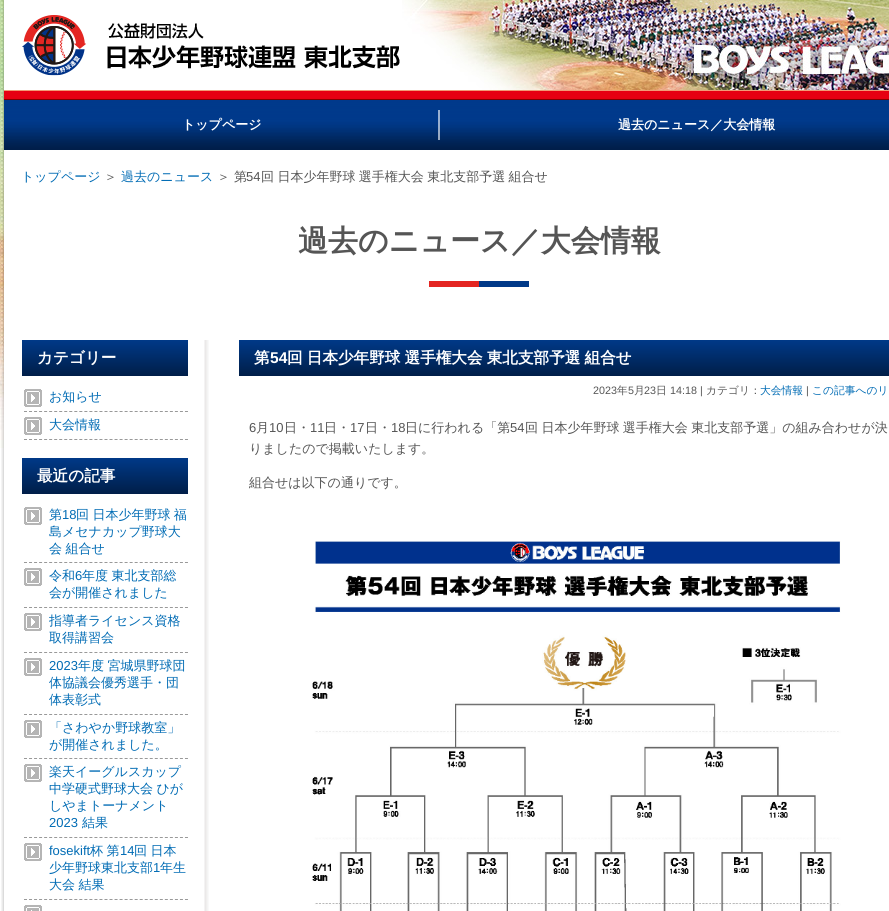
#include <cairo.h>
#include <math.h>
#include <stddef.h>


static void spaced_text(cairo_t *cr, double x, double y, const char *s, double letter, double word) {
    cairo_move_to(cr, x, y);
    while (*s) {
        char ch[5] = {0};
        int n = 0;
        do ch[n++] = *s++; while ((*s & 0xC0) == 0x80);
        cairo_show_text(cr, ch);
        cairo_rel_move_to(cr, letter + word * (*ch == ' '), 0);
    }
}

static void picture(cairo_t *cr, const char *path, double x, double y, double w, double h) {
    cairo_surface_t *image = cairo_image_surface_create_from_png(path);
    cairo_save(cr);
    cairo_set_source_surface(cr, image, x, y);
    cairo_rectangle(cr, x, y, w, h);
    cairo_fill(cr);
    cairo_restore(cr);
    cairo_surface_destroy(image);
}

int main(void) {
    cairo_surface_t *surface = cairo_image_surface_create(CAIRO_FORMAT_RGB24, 889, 911);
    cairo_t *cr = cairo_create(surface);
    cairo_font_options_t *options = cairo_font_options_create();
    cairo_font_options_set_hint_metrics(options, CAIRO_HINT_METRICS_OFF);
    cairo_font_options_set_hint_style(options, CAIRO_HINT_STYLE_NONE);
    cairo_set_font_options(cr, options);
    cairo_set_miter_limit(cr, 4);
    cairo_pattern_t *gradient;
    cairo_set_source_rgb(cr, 1, 1, 1);
    cairo_paint(cr);
    picture(cr, "img1.png", 0, 0, 4, 448);
    picture(cr, "img2.png", 1, 0, 401, 150);
    picture(cr, "img3.png", 402, 0, 487, 90);
    picture(cr, "img4.png", 22, 15, 378, 61);
    picture(cr, "img5.png", 4, 90, 885, 60);
    cairo_select_font_face(cr, "WenQuanYi Zen Hei", CAIRO_FONT_SLANT_NORMAL, CAIRO_FONT_WEIGHT_BOLD);
    cairo_set_font_size(cr, 13);
    cairo_set_source_rgb(cr, 1, 1, 1);
    cairo_move_to(cr, 182, 129);
    cairo_show_text(cr, "トップページ");
    cairo_set_source_rgba(cr, 1, 1, 1, 0.6);
    cairo_rectangle(cr, 438, 110, 2, 30);
    cairo_fill(cr);
    cairo_set_source_rgb(cr, 1, 1, 1);
    cairo_move_to(cr, 618, 129);
    cairo_show_text(cr, "過去のニュース／大会情報");
    picture(cr, "img6.png", 1, 150, 888, 761);
    cairo_select_font_face(cr, "WenQuanYi Zen Hei Medium", CAIRO_FONT_SLANT_NORMAL, CAIRO_FONT_WEIGHT_NORMAL);
    cairo_set_source_rgb(cr, 0, 0.42, 0.706);
    cairo_move_to(cr, 21, 181);
    cairo_show_text(cr, "トップページ");
    cairo_set_source_rgb(cr, 0.333, 0.333, 0.333);
    cairo_move_to(cr, 104, 181);
    cairo_show_text(cr, "＞");
    cairo_set_source_rgb(cr, 0, 0.42, 0.706);
    cairo_move_to(cr, 121, 181);
    cairo_show_text(cr, "過去のニュース");
    cairo_set_source_rgb(cr, 0.333, 0.333, 0.333);
    cairo_move_to(cr, 217, 181);
    cairo_show_text(cr, "＞ 第");
    cairo_select_font_face(cr, "Liberation Sans", CAIRO_FONT_SLANT_NORMAL, CAIRO_FONT_WEIGHT_NORMAL);
    cairo_move_to(cr, 246, 181);
    cairo_show_text(cr, "54");
    cairo_select_font_face(cr, "WenQuanYi Zen Hei Medium", CAIRO_FONT_SLANT_NORMAL, CAIRO_FONT_WEIGHT_NORMAL);
    spaced_text(cr, 261, 181, "回 日本少年野球 選手権大会 東北支部予選 組合せ", 0, -0.5);
    cairo_select_font_face(cr, "WenQuanYi Zen Hei", CAIRO_FONT_SLANT_NORMAL, CAIRO_FONT_WEIGHT_BOLD);
    cairo_set_font_size(cr, 30);
    cairo_move_to(cr, 298, 251);
    cairo_show_text(cr, "過去のニュース／大会情報");
    cairo_set_source_rgb(cr, 0.894, 0.149, 0.133);
    cairo_rectangle(cr, 429, 281, 50, 6);
    cairo_fill(cr);
    cairo_set_source_rgb(cr, 0, 0.224, 0.533);
    cairo_rectangle(cr, 479, 281, 50, 6);
    cairo_fill(cr);
    picture(cr, "img7.png", 204, 340, 5, 571);
    gradient = cairo_pattern_create_linear(105, 340, 105, 376);
    cairo_pattern_add_color_stop_rgba(gradient, 0, 0, 0.224, 0.533, 1);
    cairo_pattern_add_color_stop_rgba(gradient, 1, 0, 0.118, 0.282, 1);
    cairo_set_source(cr, gradient);
    cairo_pattern_destroy(gradient);
    cairo_rectangle(cr, 22, 340, 166, 36);
    cairo_fill(cr);
    cairo_set_font_size(cr, 15.6);
    cairo_set_source_rgb(cr, 1, 1, 1);
    cairo_move_to(cr, 37, 363);
    cairo_show_text(cr, "カテゴリー");
    picture(cr, "img8.png", 24, 389, 18, 18);
    cairo_new_path(cr);
    cairo_move_to(cr, 24, 411.5);
    cairo_line_to(cr, 188, 411.5);
    cairo_set_source_rgb(cr, 0.6, 0.6, 0.6);
    cairo_set_line_width(cr, 1);
    cairo_set_dash(cr, (double[]){3, 2.03}, 2, 0);
    cairo_stroke(cr);
    cairo_select_font_face(cr, "WenQuanYi Zen Hei Medium", CAIRO_FONT_SLANT_NORMAL, CAIRO_FONT_WEIGHT_NORMAL);
    cairo_set_font_size(cr, 13);
    cairo_set_source_rgb(cr, 0, 0.42, 0.706);
    cairo_move_to(cr, 49, 401);
    cairo_show_text(cr, "お知らせ");
    picture(cr, "img8.png", 24, 417, 18, 18);
    cairo_new_path(cr);
    cairo_move_to(cr, 24, 439.5);
    cairo_line_to(cr, 188, 439.5);
    cairo_set_source_rgb(cr, 0.6, 0.6, 0.6);
    cairo_stroke(cr);
    cairo_set_source_rgb(cr, 0, 0.42, 0.706);
    cairo_move_to(cr, 49, 429);
    cairo_show_text(cr, "大会情報");
    gradient = cairo_pattern_create_linear(105, 458, 105, 494);
    cairo_pattern_add_color_stop_rgba(gradient, 0, 0, 0.224, 0.533, 1);
    cairo_pattern_add_color_stop_rgba(gradient, 1, 0, 0.118, 0.282, 1);
    cairo_set_source(cr, gradient);
    cairo_pattern_destroy(gradient);
    cairo_rectangle(cr, 22, 458, 166, 36);
    cairo_fill(cr);
    cairo_select_font_face(cr, "WenQuanYi Zen Hei", CAIRO_FONT_SLANT_NORMAL, CAIRO_FONT_WEIGHT_BOLD);
    cairo_set_font_size(cr, 15.6);
    cairo_set_source_rgb(cr, 1, 1, 1);
    cairo_move_to(cr, 37, 481);
    cairo_show_text(cr, "最近の記事");
    picture(cr, "img8.png", 24, 507, 18, 18);
    cairo_new_path(cr);
    cairo_move_to(cr, 24, 562.5);
    cairo_line_to(cr, 188, 562.5);
    cairo_set_source_rgb(cr, 0.6, 0.6, 0.6);
    cairo_stroke(cr);
    cairo_select_font_face(cr, "WenQuanYi Zen Hei Medium", CAIRO_FONT_SLANT_NORMAL, CAIRO_FONT_WEIGHT_NORMAL);
    cairo_set_font_size(cr, 13);
    cairo_set_source_rgb(cr, 0, 0.42, 0.706);
    cairo_move_to(cr, 49, 519);
    cairo_show_text(cr, "第");
    cairo_select_font_face(cr, "Liberation Sans", CAIRO_FONT_SLANT_NORMAL, CAIRO_FONT_WEIGHT_NORMAL);
    cairo_move_to(cr, 62, 519);
    cairo_show_text(cr, "18");
    cairo_select_font_face(cr, "WenQuanYi Zen Hei Medium", CAIRO_FONT_SLANT_NORMAL, CAIRO_FONT_WEIGHT_NORMAL);
    spaced_text(cr, 76, 519, "回 日本少年野球 福", 0, -0.5);
    cairo_move_to(cr, 49, 536);
    cairo_show_text(cr, "島メセナカップ野球大");
    spaced_text(cr, 49, 553, "会 組合せ", 0, -0.5);
    picture(cr, "img8.png", 24, 568, 18, 18);
    cairo_new_path(cr);
    cairo_move_to(cr, 24, 607.5);
    cairo_line_to(cr, 188, 607.5);
    cairo_set_source_rgb(cr, 0.6, 0.6, 0.6);
    cairo_stroke(cr);
    cairo_set_source_rgb(cr, 0, 0.42, 0.706);
    cairo_move_to(cr, 49, 580);
    cairo_show_text(cr, "令和");
    cairo_select_font_face(cr, "Liberation Sans", CAIRO_FONT_SLANT_NORMAL, CAIRO_FONT_WEIGHT_NORMAL);
    cairo_move_to(cr, 75, 580);
    cairo_show_text(cr, "6");
    cairo_select_font_face(cr, "WenQuanYi Zen Hei Medium", CAIRO_FONT_SLANT_NORMAL, CAIRO_FONT_WEIGHT_NORMAL);
    spaced_text(cr, 82, 580, "年度 東北支部総", 0, -0.5);
    cairo_move_to(cr, 49, 597);
    cairo_show_text(cr, "会が開催されました");
    picture(cr, "img8.png", 24, 613, 18, 18);
    cairo_new_path(cr);
    cairo_move_to(cr, 24, 652.5);
    cairo_line_to(cr, 188, 652.5);
    cairo_set_source_rgb(cr, 0.6, 0.6, 0.6);
    cairo_stroke(cr);
    cairo_set_source_rgb(cr, 0, 0.42, 0.706);
    cairo_move_to(cr, 49, 625);
    cairo_show_text(cr, "指導者ライセンス資格");
    cairo_move_to(cr, 49, 642);
    cairo_show_text(cr, "取得講習会");
    picture(cr, "img8.png", 24, 658, 18, 18);
    cairo_new_path(cr);
    cairo_move_to(cr, 24, 714.5);
    cairo_line_to(cr, 188, 714.5);
    cairo_set_source_rgb(cr, 0.6, 0.6, 0.6);
    cairo_stroke(cr);
    cairo_select_font_face(cr, "Liberation Sans", CAIRO_FONT_SLANT_NORMAL, CAIRO_FONT_WEIGHT_NORMAL);
    cairo_set_source_rgb(cr, 0, 0.42, 0.706);
    cairo_move_to(cr, 49, 670);
    cairo_show_text(cr, "2023");
    cairo_select_font_face(cr, "WenQuanYi Zen Hei Medium", CAIRO_FONT_SLANT_NORMAL, CAIRO_FONT_WEIGHT_NORMAL);
    spaced_text(cr, 78, 670, "年度 宮城県野球団", 0, -0.5);
    cairo_move_to(cr, 49, 687);
    cairo_show_text(cr, "体協議会優秀選手・団");
    cairo_move_to(cr, 49, 704);
    cairo_show_text(cr, "体表彰式");
    picture(cr, "img8.png", 24, 720, 18, 18);
    cairo_new_path(cr);
    cairo_move_to(cr, 24, 758.5);
    cairo_line_to(cr, 188, 758.5);
    cairo_set_source_rgb(cr, 0.6, 0.6, 0.6);
    cairo_stroke(cr);
    cairo_set_source_rgb(cr, 0, 0.42, 0.706);
    cairo_move_to(cr, 49, 732);
    cairo_show_text(cr, "「さわやか野球教室」");
    cairo_move_to(cr, 49, 749);
    cairo_show_text(cr, "が開催されました。");
    picture(cr, "img8.png", 24, 764, 18, 18);
    cairo_new_path(cr);
    cairo_move_to(cr, 24, 837.5);
    cairo_line_to(cr, 188, 837.5);
    cairo_set_source_rgb(cr, 0.6, 0.6, 0.6);
    cairo_stroke(cr);
    cairo_set_source_rgb(cr, 0, 0.42, 0.706);
    cairo_move_to(cr, 49, 776);
    cairo_show_text(cr, "楽天イーグルスカップ");
    spaced_text(cr, 49, 793, "中学硬式野球大会 ひが", 0, -0.5);
    cairo_move_to(cr, 49, 810);
    cairo_show_text(cr, "しやまトーナメント");
    cairo_select_font_face(cr, "Liberation Sans", CAIRO_FONT_SLANT_NORMAL, CAIRO_FONT_WEIGHT_NORMAL);
    cairo_move_to(cr, 49, 827);
    cairo_show_text(cr, "2023");
    cairo_select_font_face(cr, "WenQuanYi Zen Hei Medium", CAIRO_FONT_SLANT_NORMAL, CAIRO_FONT_WEIGHT_NORMAL);
    cairo_move_to(cr, 82, 827);
    cairo_show_text(cr, "結果");
    picture(cr, "img8.png", 24, 843, 18, 18);
    cairo_new_path(cr);
    cairo_move_to(cr, 24, 899.5);
    cairo_line_to(cr, 188, 899.5);
    cairo_set_source_rgb(cr, 0.6, 0.6, 0.6);
    cairo_stroke(cr);
    cairo_select_font_face(cr, "Liberation Sans", CAIRO_FONT_SLANT_NORMAL, CAIRO_FONT_WEIGHT_NORMAL);
    cairo_set_source_rgb(cr, 0, 0.42, 0.706);
    cairo_move_to(cr, 49, 855);
    cairo_show_text(cr, "fosekift");
    cairo_select_font_face(cr, "WenQuanYi Zen Hei Medium", CAIRO_FONT_SLANT_NORMAL, CAIRO_FONT_WEIGHT_NORMAL);
    spaced_text(cr, 90, 855, "杯 第", 0, -0.5);
    cairo_select_font_face(cr, "Liberation Sans", CAIRO_FONT_SLANT_NORMAL, CAIRO_FONT_WEIGHT_NORMAL);
    cairo_move_to(cr, 120, 855);
    cairo_show_text(cr, "14");
    cairo_select_font_face(cr, "WenQuanYi Zen Hei Medium", CAIRO_FONT_SLANT_NORMAL, CAIRO_FONT_WEIGHT_NORMAL);
    spaced_text(cr, 134, 855, "回 日本", 0, -0.5);
    cairo_move_to(cr, 49, 872);
    cairo_show_text(cr, "少年野球東北支部");
    cairo_select_font_face(cr, "Liberation Sans", CAIRO_FONT_SLANT_NORMAL, CAIRO_FONT_WEIGHT_NORMAL);
    cairo_move_to(cr, 153, 872);
    cairo_show_text(cr, "1");
    cairo_select_font_face(cr, "WenQuanYi Zen Hei Medium", CAIRO_FONT_SLANT_NORMAL, CAIRO_FONT_WEIGHT_NORMAL);
    cairo_move_to(cr, 160, 872);
    cairo_show_text(cr, "年生");
    spaced_text(cr, 49, 889, "大会 結果", 0, -0.5);
    picture(cr, "img9.png", 24, 905, 18, 6);
    gradient = cairo_pattern_create_linear(577, 340, 577, 376);
    cairo_pattern_add_color_stop_rgba(gradient, 0, 0, 0.224, 0.533, 1);
    cairo_pattern_add_color_stop_rgba(gradient, 1, 0, 0.118, 0.282, 1);
    cairo_set_source(cr, gradient);
    cairo_pattern_destroy(gradient);
    cairo_rectangle(cr, 239, 340, 650, 36);
    cairo_fill(cr);
    cairo_select_font_face(cr, "WenQuanYi Zen Hei", CAIRO_FONT_SLANT_NORMAL, CAIRO_FONT_WEIGHT_BOLD);
    cairo_set_font_size(cr, 15.6);
    cairo_set_source_rgb(cr, 1, 1, 1);
    cairo_move_to(cr, 254, 363);
    cairo_show_text(cr, "第");
    cairo_select_font_face(cr, "Liberation Sans", CAIRO_FONT_SLANT_NORMAL, CAIRO_FONT_WEIGHT_BOLD);
    cairo_move_to(cr, 270, 363);
    cairo_show_text(cr, "54");
    cairo_select_font_face(cr, "WenQuanYi Zen Hei", CAIRO_FONT_SLANT_NORMAL, CAIRO_FONT_WEIGHT_BOLD);
    spaced_text(cr, 287, 363, "回 日本少年野球 選手権大会 東北支部予選 組合せ", 0, -0.5);
    cairo_select_font_face(cr, "Liberation Sans", CAIRO_FONT_SLANT_NORMAL, CAIRO_FONT_WEIGHT_NORMAL);
    cairo_set_font_size(cr, 10.75);
    cairo_set_source_rgb(cr, 0.333, 0.333, 0.333);
    cairo_move_to(cr, 593, 394);
    cairo_show_text(cr, "2023");
    cairo_select_font_face(cr, "WenQuanYi Zen Hei Medium", CAIRO_FONT_SLANT_NORMAL, CAIRO_FONT_WEIGHT_NORMAL);
    cairo_move_to(cr, 617, 394);
    cairo_show_text(cr, "年");
    cairo_select_font_face(cr, "Liberation Sans", CAIRO_FONT_SLANT_NORMAL, CAIRO_FONT_WEIGHT_NORMAL);
    cairo_move_to(cr, 628, 394);
    cairo_show_text(cr, "5");
    cairo_select_font_face(cr, "WenQuanYi Zen Hei Medium", CAIRO_FONT_SLANT_NORMAL, CAIRO_FONT_WEIGHT_NORMAL);
    cairo_move_to(cr, 634, 394);
    cairo_show_text(cr, "月");
    cairo_select_font_face(cr, "Liberation Sans", CAIRO_FONT_SLANT_NORMAL, CAIRO_FONT_WEIGHT_NORMAL);
    cairo_move_to(cr, 644, 394);
    cairo_show_text(cr, "23");
    cairo_select_font_face(cr, "WenQuanYi Zen Hei Medium", CAIRO_FONT_SLANT_NORMAL, CAIRO_FONT_WEIGHT_NORMAL);
    cairo_move_to(cr, 656, 394);
    cairo_show_text(cr, "日");
    cairo_select_font_face(cr, "Liberation Sans", CAIRO_FONT_SLANT_NORMAL, CAIRO_FONT_WEIGHT_NORMAL);
    cairo_move_to(cr, 670, 394);
    cairo_show_text(cr, "14:18 |");
    cairo_select_font_face(cr, "WenQuanYi Zen Hei Medium", CAIRO_FONT_SLANT_NORMAL, CAIRO_FONT_WEIGHT_NORMAL);
    cairo_move_to(cr, 706, 394);
    cairo_show_text(cr, "カテゴリ：");
    cairo_set_source_rgb(cr, 0, 0.42, 0.706);
    cairo_move_to(cr, 760, 394);
    cairo_show_text(cr, "大会情報");
    cairo_select_font_face(cr, "Liberation Sans", CAIRO_FONT_SLANT_NORMAL, CAIRO_FONT_WEIGHT_NORMAL);
    cairo_set_source_rgb(cr, 0.333, 0.333, 0.333);
    cairo_move_to(cr, 806, 394);
    cairo_show_text(cr, "|");
    cairo_select_font_face(cr, "WenQuanYi Zen Hei Medium", CAIRO_FONT_SLANT_NORMAL, CAIRO_FONT_WEIGHT_NORMAL);
    cairo_set_source_rgb(cr, 0, 0.42, 0.706);
    cairo_move_to(cr, 812, 394);
    cairo_show_text(cr, "この記事へのリ");
    cairo_select_font_face(cr, "Liberation Sans", CAIRO_FONT_SLANT_NORMAL, CAIRO_FONT_WEIGHT_NORMAL);
    cairo_set_font_size(cr, 13);
    cairo_set_source_rgb(cr, 0.333, 0.333, 0.333);
    cairo_move_to(cr, 249, 432);
    cairo_show_text(cr, "6");
    cairo_select_font_face(cr, "WenQuanYi Zen Hei Medium", CAIRO_FONT_SLANT_NORMAL, CAIRO_FONT_WEIGHT_NORMAL);
    cairo_move_to(cr, 256, 432);
    cairo_show_text(cr, "月");
    cairo_select_font_face(cr, "Liberation Sans", CAIRO_FONT_SLANT_NORMAL, CAIRO_FONT_WEIGHT_NORMAL);
    cairo_move_to(cr, 269, 432);
    cairo_show_text(cr, "10");
    cairo_select_font_face(cr, "WenQuanYi Zen Hei Medium", CAIRO_FONT_SLANT_NORMAL, CAIRO_FONT_WEIGHT_NORMAL);
    cairo_move_to(cr, 284, 432);
    cairo_show_text(cr, "日・");
    cairo_select_font_face(cr, "Liberation Sans", CAIRO_FONT_SLANT_NORMAL, CAIRO_FONT_WEIGHT_NORMAL);
    cairo_move_to(cr, 310, 432);
    cairo_show_text(cr, "11");
    cairo_select_font_face(cr, "WenQuanYi Zen Hei Medium", CAIRO_FONT_SLANT_NORMAL, CAIRO_FONT_WEIGHT_NORMAL);
    cairo_move_to(cr, 324, 432);
    cairo_show_text(cr, "日・");
    cairo_select_font_face(cr, "Liberation Sans", CAIRO_FONT_SLANT_NORMAL, CAIRO_FONT_WEIGHT_NORMAL);
    cairo_move_to(cr, 350, 432);
    cairo_show_text(cr, "17");
    cairo_select_font_face(cr, "WenQuanYi Zen Hei Medium", CAIRO_FONT_SLANT_NORMAL, CAIRO_FONT_WEIGHT_NORMAL);
    cairo_move_to(cr, 365, 432);
    cairo_show_text(cr, "日・");
    cairo_select_font_face(cr, "Liberation Sans", CAIRO_FONT_SLANT_NORMAL, CAIRO_FONT_WEIGHT_NORMAL);
    cairo_move_to(cr, 391, 432);
    cairo_show_text(cr, "18");
    cairo_select_font_face(cr, "WenQuanYi Zen Hei Medium", CAIRO_FONT_SLANT_NORMAL, CAIRO_FONT_WEIGHT_NORMAL);
    cairo_move_to(cr, 405, 432);
    cairo_show_text(cr, "日に行われる「第");
    cairo_select_font_face(cr, "Liberation Sans", CAIRO_FONT_SLANT_NORMAL, CAIRO_FONT_WEIGHT_NORMAL);
    cairo_move_to(cr, 510, 432);
    cairo_show_text(cr, "54");
    cairo_select_font_face(cr, "WenQuanYi Zen Hei Medium", CAIRO_FONT_SLANT_NORMAL, CAIRO_FONT_WEIGHT_NORMAL);
    spaced_text(cr, 525, 432, "回 日本少年野球 選手権大会 東北支部予選」の組み合わせが決", 0, -0.5);
    cairo_move_to(cr, 249, 453);
    cairo_show_text(cr, "りましたので掲載いたします。");
    cairo_move_to(cr, 249, 487);
    cairo_show_text(cr, "組合せは以下の通りです。");
    picture(cr, "img10.png", 312, 541, 529, 370);
    cairo_surface_write_to_png(surface, "page.png");
    cairo_font_options_destroy(options);
    cairo_destroy(cr);
    cairo_surface_destroy(surface);
    return 0;
}
